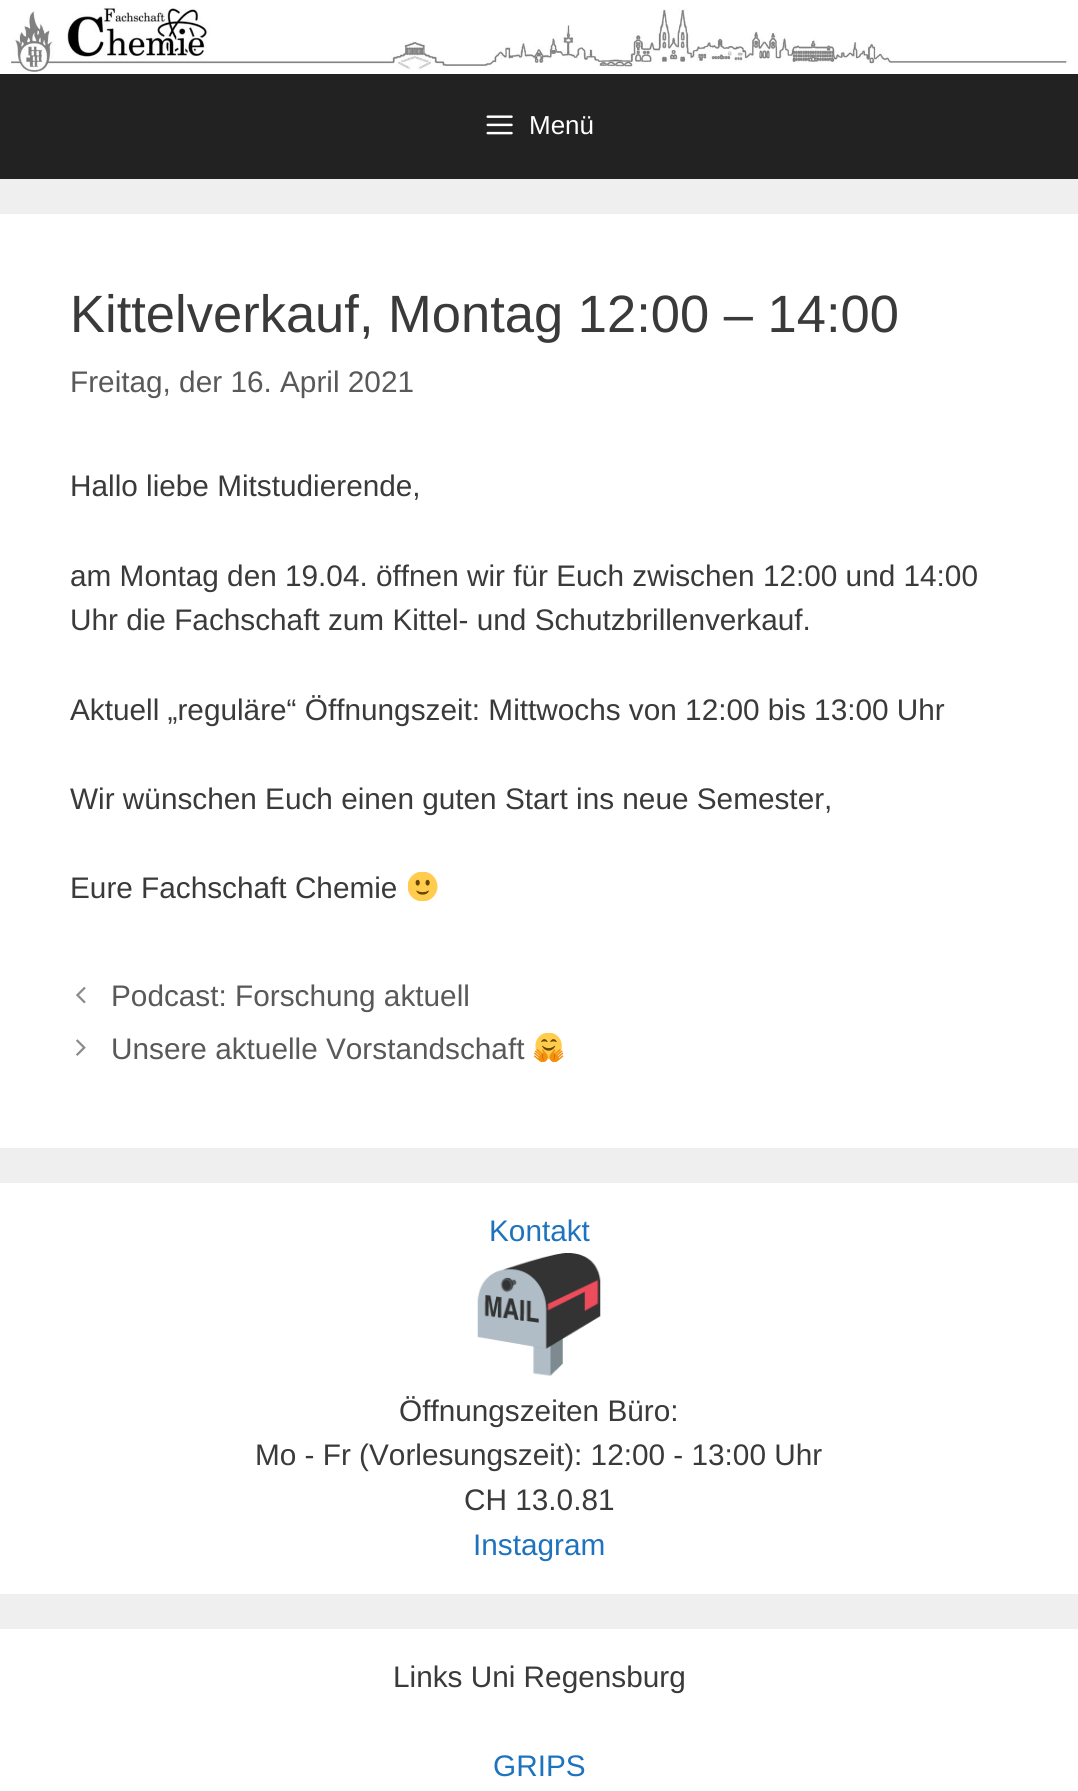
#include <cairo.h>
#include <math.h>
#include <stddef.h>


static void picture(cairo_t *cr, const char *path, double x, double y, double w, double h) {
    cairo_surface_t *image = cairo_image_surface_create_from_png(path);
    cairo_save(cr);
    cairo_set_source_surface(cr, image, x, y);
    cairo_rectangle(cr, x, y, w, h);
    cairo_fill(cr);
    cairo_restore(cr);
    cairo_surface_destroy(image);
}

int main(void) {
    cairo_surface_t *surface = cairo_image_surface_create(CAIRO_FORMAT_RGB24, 1078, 1791);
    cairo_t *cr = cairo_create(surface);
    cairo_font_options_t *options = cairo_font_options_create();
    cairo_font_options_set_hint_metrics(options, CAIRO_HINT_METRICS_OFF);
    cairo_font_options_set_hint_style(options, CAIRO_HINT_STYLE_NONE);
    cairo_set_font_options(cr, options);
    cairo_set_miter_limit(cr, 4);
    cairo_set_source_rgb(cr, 0.937, 0.937, 0.937);
    cairo_paint(cr);
    cairo_set_source_rgb(cr, 1, 1, 1);
    cairo_rectangle(cr, 0, 0, 1078, 74);
    cairo_fill(cr);
    picture(cr, "img1.png", 11, 5, 1058, 67);
    cairo_set_source_rgb(cr, 0.133, 0.133, 0.133);
    cairo_rectangle(cr, 0, 74, 1078, 105);
    cairo_fill(cr);
    picture(cr, "img2.png", 486, 115, 27, 20);
    cairo_select_font_face(cr, "Liberation Sans", CAIRO_FONT_SLANT_NORMAL, CAIRO_FONT_WEIGHT_NORMAL);
    cairo_set_font_size(cr, 26);
    cairo_set_source_rgb(cr, 1, 1, 1);
    cairo_move_to(cr, 529, 134);
    cairo_show_text(cr, "Menü");
    cairo_rectangle(cr, 0, 214, 1078, 934);
    cairo_fill(cr);
    cairo_set_font_size(cr, 52.5);
    cairo_set_source_rgb(cr, 0.227, 0.227, 0.227);
    cairo_move_to(cr, 70, 332);
    cairo_show_text(cr, "Kittelverkauf, Montag 12:00 – 14:00");
    cairo_set_font_size(cr, 29.75);
    cairo_set_source_rgb(cr, 0.349, 0.349, 0.349);
    cairo_move_to(cr, 70, 392);
    cairo_show_text(cr, "Freitag, der 16. April 2021");
    cairo_set_source_rgb(cr, 0.227, 0.227, 0.227);
    cairo_move_to(cr, 70, 496);
    cairo_show_text(cr, "Hallo liebe Mitstudierende,");
    cairo_move_to(cr, 70, 586);
    cairo_show_text(cr, "am Montag den 19.04. öffnen wir für Euch zwischen 12:00 und 14:00");
    cairo_move_to(cr, 70, 630);
    cairo_show_text(cr, "Uhr die Fachschaft zum Kittel- und Schutzbrillenverkauf.");
    cairo_move_to(cr, 70, 720);
    cairo_show_text(cr, "Aktuell „reguläre“ Öffnungszeit: Mittwochs von 12:00 bis 13:00 Uhr");
    cairo_move_to(cr, 70, 809);
    cairo_show_text(cr, "Wir wünschen Euch einen guten Start ins neue Semester,");
    cairo_move_to(cr, 70, 898);
    cairo_show_text(cr, "Eure Fachschaft Chemie");
    picture(cr, "img3.png", 408, 872, 30, 29);
    picture(cr, "img4.png", 76, 986, 10, 18);
    cairo_set_source_rgb(cr, 0.349, 0.349, 0.349);
    cairo_move_to(cr, 111, 1006);
    cairo_show_text(cr, "Podcast: Forschung aktuell");
    picture(cr, "img5.png", 76, 1039, 10, 17);
    cairo_move_to(cr, 111, 1059);
    cairo_show_text(cr, "Unsere aktuelle Vorstandschaft");
    picture(cr, "img6.png", 534, 1033, 30, 29);
    cairo_set_source_rgb(cr, 1, 1, 1);
    cairo_rectangle(cr, 0, 1183, 1078, 411);
    cairo_fill(cr);
    cairo_set_source_rgb(cr, 0.118, 0.451, 0.745);
    cairo_move_to(cr, 489, 1241);
    cairo_show_text(cr, "Kontakt");
    picture(cr, "img7.png", 477, 1253, 124, 123);
    cairo_set_source_rgb(cr, 0.227, 0.227, 0.227);
    cairo_move_to(cr, 399, 1421);
    cairo_show_text(cr, "Öffnungszeiten Büro:");
    cairo_move_to(cr, 255, 1465);
    cairo_show_text(cr, "Mo - Fr (Vorlesungszeit): 12:00 - 13:00 Uhr");
    cairo_move_to(cr, 464, 1510);
    cairo_show_text(cr, "CH 13.0.81");
    cairo_set_source_rgb(cr, 0.118, 0.451, 0.745);
    cairo_move_to(cr, 473, 1555);
    cairo_show_text(cr, "Instagram");
    cairo_set_source_rgb(cr, 1, 1, 1);
    cairo_rectangle(cr, 0, 1629, 1078, 162);
    cairo_fill(cr);
    cairo_set_source_rgb(cr, 0.227, 0.227, 0.227);
    cairo_move_to(cr, 393, 1687);
    cairo_show_text(cr, "Links Uni Regensburg");
    cairo_set_source_rgb(cr, 0.118, 0.451, 0.745);
    cairo_move_to(cr, 493, 1776);
    cairo_show_text(cr, "GRIPS");
    cairo_surface_write_to_png(surface, "page.png");
    cairo_font_options_destroy(options);
    cairo_destroy(cr);
    cairo_surface_destroy(surface);
    return 0;
}
